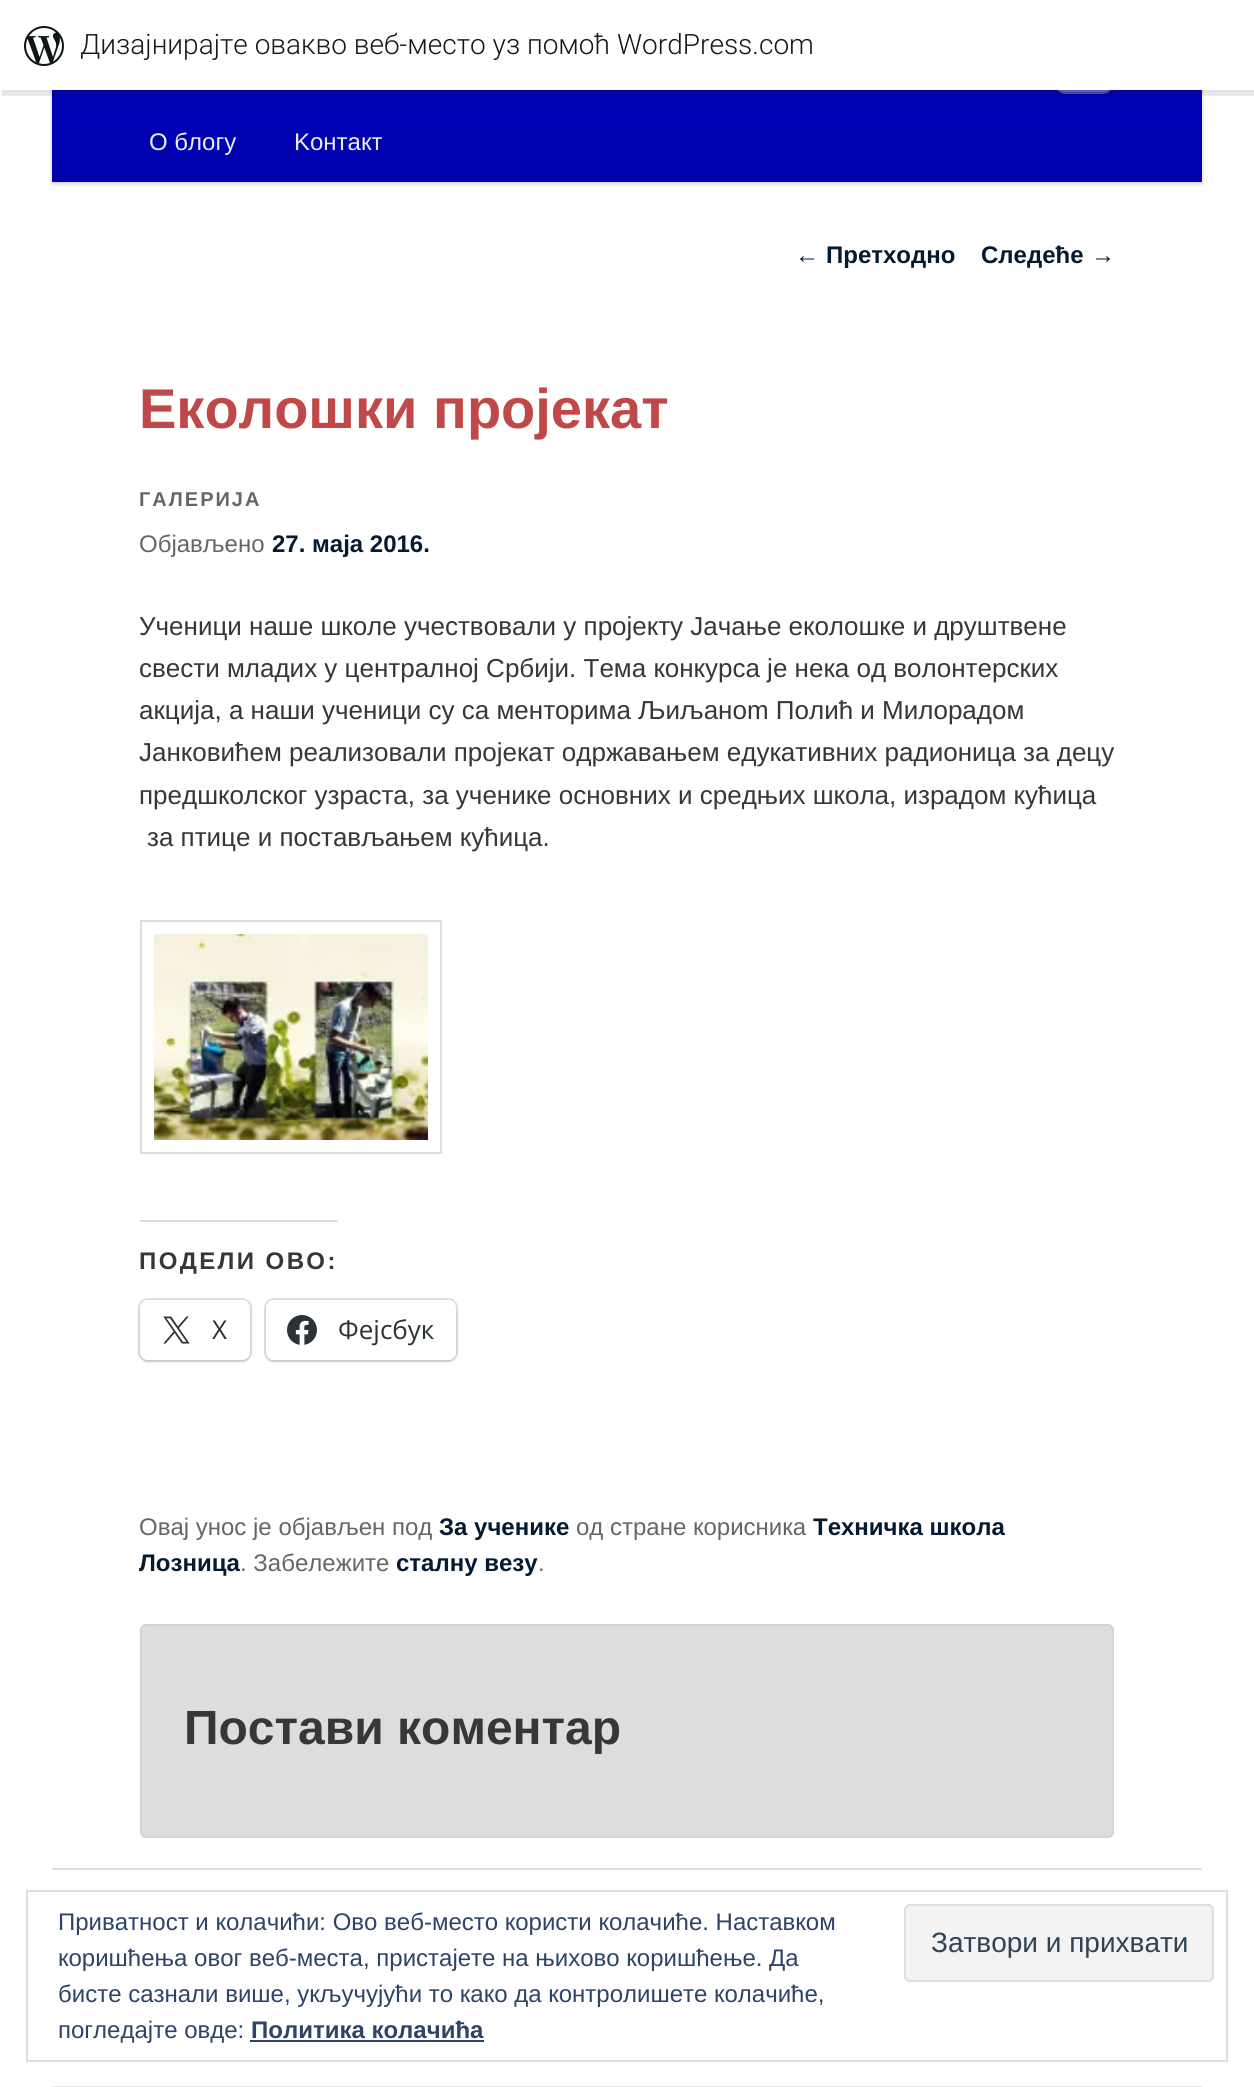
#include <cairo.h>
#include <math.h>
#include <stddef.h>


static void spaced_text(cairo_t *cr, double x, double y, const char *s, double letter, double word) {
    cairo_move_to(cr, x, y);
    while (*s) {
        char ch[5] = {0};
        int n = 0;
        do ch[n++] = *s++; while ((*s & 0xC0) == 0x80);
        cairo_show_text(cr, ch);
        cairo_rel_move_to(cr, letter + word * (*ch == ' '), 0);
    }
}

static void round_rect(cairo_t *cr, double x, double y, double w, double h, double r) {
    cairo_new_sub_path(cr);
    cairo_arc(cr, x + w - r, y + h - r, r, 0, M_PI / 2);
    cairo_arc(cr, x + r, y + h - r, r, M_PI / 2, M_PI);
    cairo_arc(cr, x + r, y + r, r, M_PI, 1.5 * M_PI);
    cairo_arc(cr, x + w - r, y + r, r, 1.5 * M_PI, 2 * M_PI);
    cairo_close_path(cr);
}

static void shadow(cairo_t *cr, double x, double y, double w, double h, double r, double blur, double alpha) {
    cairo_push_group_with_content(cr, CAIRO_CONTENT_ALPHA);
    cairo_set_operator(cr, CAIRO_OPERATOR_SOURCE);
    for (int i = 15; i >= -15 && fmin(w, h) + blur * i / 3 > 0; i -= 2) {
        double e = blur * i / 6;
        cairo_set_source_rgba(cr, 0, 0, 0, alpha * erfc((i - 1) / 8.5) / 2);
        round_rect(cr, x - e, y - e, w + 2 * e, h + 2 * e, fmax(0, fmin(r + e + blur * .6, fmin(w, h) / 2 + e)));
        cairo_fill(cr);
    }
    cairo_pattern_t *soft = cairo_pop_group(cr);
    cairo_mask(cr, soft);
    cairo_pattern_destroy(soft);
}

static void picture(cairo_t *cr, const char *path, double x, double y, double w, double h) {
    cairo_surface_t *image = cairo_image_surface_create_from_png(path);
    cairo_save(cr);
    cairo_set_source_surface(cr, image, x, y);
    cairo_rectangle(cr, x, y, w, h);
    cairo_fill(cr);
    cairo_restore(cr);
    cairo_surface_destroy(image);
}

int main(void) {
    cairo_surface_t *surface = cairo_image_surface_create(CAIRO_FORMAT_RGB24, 1254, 2087);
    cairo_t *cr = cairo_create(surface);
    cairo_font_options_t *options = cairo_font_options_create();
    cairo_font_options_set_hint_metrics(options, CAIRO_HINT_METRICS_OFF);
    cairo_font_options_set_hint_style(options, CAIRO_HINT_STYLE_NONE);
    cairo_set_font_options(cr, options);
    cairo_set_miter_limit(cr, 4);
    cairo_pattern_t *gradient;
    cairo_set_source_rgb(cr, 1, 1, 1);
    cairo_paint(cr);
    cairo_set_source_rgb(cr, 0, 0, 0);
    shadow(cr, 52, 24, 1150, 160, 0, 2, 0.2);
    gradient = cairo_pattern_create_linear(627, 22, 627, 182);
    cairo_pattern_add_color_stop_rgba(gradient, 0, 0, 0.004, 0.737, 1);
    cairo_pattern_add_color_stop_rgba(gradient, 1, 0, 0.004, 0.678, 1);
    cairo_set_source(cr, gradient);
    cairo_pattern_destroy(gradient);
    cairo_rectangle(cr, 52, 90, 1150, 92);
    cairo_fill(cr);
    cairo_set_source_rgba(cr, 1, 1, 1, 0.4);
    round_rect(cr, 1054, 30, 60, 64, 12);
    cairo_fill(cr);
    round_rect(cr, 1055, 31, 58, 62, 11);
    cairo_set_source_rgba(cr, 0, 0, 0, 0.2);
    cairo_stroke(cr);
    cairo_set_source_rgb(cr, 0, 0, 0);
    shadow(cr, 0, 2, 1254, 90, 0, 2, 0.05);
    cairo_set_source_rgba(cr, 0, 0, 0, 0.08);
    cairo_new_path(cr);
    cairo_move_to(cr, 2, 90);
    cairo_line_to(cr, 2, 96);
    cairo_line_to(cr, 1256, 96);
    cairo_line_to(cr, 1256, 6);
    cairo_line_to(cr, 1254, 6);
    cairo_line_to(cr, 1254, 90);
    cairo_close_path(cr);
    cairo_fill(cr);
    cairo_set_source_rgb(cr, 1, 1, 1);
    cairo_rectangle(cr, 0, 0, 1254, 90);
    cairo_fill(cr);
    picture(cr, "img1.png", 24, 26, 40, 40);
    cairo_select_font_face(cr, "Roboto Light", CAIRO_FONT_SLANT_NORMAL, CAIRO_FONT_WEIGHT_NORMAL);
    cairo_set_font_size(cr, 28);
    cairo_set_source_rgb(cr, 0.09, 0.09, 0.09);
    cairo_move_to(cr, 80, 54);
    cairo_show_text(cr, "Дизајнирајте овакво веб-место уз помоћ WordPress.com");
    cairo_select_font_face(cr, "Liberation Sans", CAIRO_FONT_SLANT_NORMAL, CAIRO_FONT_WEIGHT_NORMAL);
    cairo_set_font_size(cr, 24);
    cairo_set_source_rgb(cr, 0.933, 0.933, 0.933);
    cairo_move_to(cr, 149, 150);
    cairo_show_text(cr, "О блогу");
    cairo_move_to(cr, 294, 150);
    cairo_show_text(cr, "Koнтакт");
    cairo_set_source_rgb(cr, 0.012, 0.102, 0.188);
    cairo_move_to(cr, 795, 263);
    cairo_show_text(cr, "←");
    cairo_select_font_face(cr, "Liberation Sans", CAIRO_FONT_SLANT_NORMAL, CAIRO_FONT_WEIGHT_BOLD);
    cairo_move_to(cr, 826, 263);
    cairo_show_text(cr, "Претходно");
    cairo_move_to(cr, 981, 263);
    cairo_show_text(cr, "Следеће");
    cairo_select_font_face(cr, "Liberation Sans", CAIRO_FONT_SLANT_NORMAL, CAIRO_FONT_WEIGHT_NORMAL);
    cairo_move_to(cr, 1091, 263);
    cairo_show_text(cr, "→");
    cairo_select_font_face(cr, "Liberation Sans", CAIRO_FONT_SLANT_NORMAL, CAIRO_FONT_WEIGHT_BOLD);
    cairo_set_font_size(cr, 56);
    cairo_set_source_rgb(cr, 0.753, 0.282, 0.282);
    cairo_move_to(cr, 139, 428);
    cairo_show_text(cr, "Еколошки пројекат");
    cairo_set_font_size(cr, 20);
    cairo_set_source_rgb(cr, 0.4, 0.4, 0.4);
    spaced_text(cr, 139, 506, "ГАЛЕРИЈА", 2, 0);
    cairo_select_font_face(cr, "Liberation Sans", CAIRO_FONT_SLANT_NORMAL, CAIRO_FONT_WEIGHT_NORMAL);
    cairo_set_font_size(cr, 24);
    cairo_move_to(cr, 139, 552);
    cairo_show_text(cr, "Објављено");
    cairo_select_font_face(cr, "Liberation Sans", CAIRO_FONT_SLANT_NORMAL, CAIRO_FONT_WEIGHT_BOLD);
    cairo_set_source_rgb(cr, 0.012, 0.102, 0.188);
    cairo_move_to(cr, 272, 552);
    cairo_show_text(cr, "27. маја 2016.");
    cairo_select_font_face(cr, "Liberation Sans", CAIRO_FONT_SLANT_NORMAL, CAIRO_FONT_WEIGHT_NORMAL);
    cairo_set_font_size(cr, 26);
    cairo_set_source_rgb(cr, 0.216, 0.216, 0.216);
    cairo_move_to(cr, 139, 635);
    cairo_show_text(cr, "Ученици наше школе учествовали у пројекту Јачање еколошке и друштвене");
    cairo_move_to(cr, 139, 677);
    cairo_show_text(cr, "свести младих у централној Србији. Тема конкурса је нека од волонтерских");
    cairo_move_to(cr, 139, 719);
    cairo_show_text(cr, "акција, а наши ученици су са менторима Љиљанom Полић и Милорадом");
    cairo_move_to(cr, 139, 761);
    cairo_show_text(cr, "Јанковићем реализовали пројекaт oдржавањем едукативних радионица за децу");
    cairo_move_to(cr, 139, 804);
    cairo_show_text(cr, "предшколског узраста, за ученике основних и средњих школа, израдом кућица");
    cairo_move_to(cr, 147, 846);
    cairo_show_text(cr, "за птице и постављањем кућица.");
    cairo_rectangle(cr, 141, 921, 300, 232);
    cairo_set_source_rgb(cr, 0.867, 0.867, 0.867);
    cairo_stroke(cr);
    picture(cr, "img2.png", 154, 934, 274, 206);
    cairo_set_source_rgb(cr, 0.863, 0.863, 0.871);
    cairo_rectangle(cr, 140, 1220, 198, 2);
    cairo_fill(cr);
    cairo_select_font_face(cr, "Liberation Sans", CAIRO_FONT_SLANT_NORMAL, CAIRO_FONT_WEIGHT_BOLD);
    cairo_set_font_size(cr, 24);
    cairo_set_source_rgb(cr, 0.216, 0.216, 0.216);
    spaced_text(cr, 139, 1269, "ПОДЕЛИ ОВО:", 2.4, 0);
    round_rect(cr, 139, 1299, 112, 62, 9);
    cairo_set_source_rgb(cr, 0.878, 0.878, 0.878);
    cairo_stroke(cr);
    cairo_set_source_rgb(cr, 0, 0, 0);
    shadow(cr, 140, 1302, 110, 60, 8, 2, 0.12);
    cairo_set_source_rgb(cr, 1, 1, 1);
    round_rect(cr, 140, 1300, 110, 60, 8);
    cairo_fill(cr);
    picture(cr, "img3.png", 163, 1316, 27, 28);
    cairo_select_font_face(cr, "Open Sans", CAIRO_FONT_SLANT_NORMAL, CAIRO_FONT_WEIGHT_NORMAL);
    cairo_set_font_size(cr, 26);
    cairo_set_source_rgb(cr, 0.173, 0.2, 0.22);
    cairo_move_to(cr, 212, 1339);
    cairo_show_text(cr, "X");
    round_rect(cr, 265, 1299, 192, 62, 9);
    cairo_set_source_rgb(cr, 0.878, 0.878, 0.878);
    cairo_stroke(cr);
    cairo_set_source_rgb(cr, 0, 0, 0);
    shadow(cr, 266, 1302, 190, 60, 8, 2, 0.12);
    cairo_set_source_rgb(cr, 1, 1, 1);
    round_rect(cr, 266, 1300, 190, 60, 8);
    cairo_fill(cr);
    picture(cr, "img4.png", 287, 1315, 30, 30);
    cairo_set_source_rgb(cr, 0.173, 0.2, 0.22);
    cairo_move_to(cr, 338, 1339);
    cairo_show_text(cr, "Фејсбук");
    cairo_select_font_face(cr, "Liberation Sans", CAIRO_FONT_SLANT_NORMAL, CAIRO_FONT_WEIGHT_NORMAL);
    cairo_set_font_size(cr, 24);
    cairo_set_source_rgb(cr, 0.4, 0.4, 0.4);
    cairo_move_to(cr, 139, 1535);
    cairo_show_text(cr, "Овај унос је објављен под");
    cairo_select_font_face(cr, "Liberation Sans", CAIRO_FONT_SLANT_NORMAL, CAIRO_FONT_WEIGHT_BOLD);
    cairo_set_source_rgb(cr, 0.012, 0.102, 0.188);
    cairo_move_to(cr, 439, 1535);
    cairo_show_text(cr, "За ученике");
    cairo_select_font_face(cr, "Liberation Sans", CAIRO_FONT_SLANT_NORMAL, CAIRO_FONT_WEIGHT_NORMAL);
    cairo_set_source_rgb(cr, 0.4, 0.4, 0.4);
    cairo_move_to(cr, 576, 1535);
    cairo_show_text(cr, "од стране корисника");
    cairo_select_font_face(cr, "Liberation Sans", CAIRO_FONT_SLANT_NORMAL, CAIRO_FONT_WEIGHT_BOLD);
    cairo_set_source_rgb(cr, 0.012, 0.102, 0.188);
    cairo_move_to(cr, 813, 1535);
    cairo_show_text(cr, "Техничка школа");
    cairo_move_to(cr, 139, 1571);
    cairo_show_text(cr, "Лозница");
    cairo_select_font_face(cr, "Liberation Sans", CAIRO_FONT_SLANT_NORMAL, CAIRO_FONT_WEIGHT_NORMAL);
    cairo_set_source_rgb(cr, 0.4, 0.4, 0.4);
    cairo_move_to(cr, 240, 1571);
    cairo_show_text(cr, ". Забележите");
    cairo_select_font_face(cr, "Liberation Sans", CAIRO_FONT_SLANT_NORMAL, CAIRO_FONT_WEIGHT_BOLD);
    cairo_set_source_rgb(cr, 0.012, 0.102, 0.188);
    cairo_move_to(cr, 396, 1571);
    cairo_show_text(cr, "сталну везу");
    cairo_select_font_face(cr, "Liberation Sans", CAIRO_FONT_SLANT_NORMAL, CAIRO_FONT_WEIGHT_NORMAL);
    cairo_set_source_rgb(cr, 0.4, 0.4, 0.4);
    cairo_move_to(cr, 538, 1571);
    cairo_show_text(cr, ".");
    cairo_set_source_rgb(cr, 0.867, 0.867, 0.867);
    round_rect(cr, 141, 1625, 972, 212, 5);
    cairo_fill_preserve(cr);
    cairo_set_source_rgb(cr, 0.827, 0.827, 0.827);
    cairo_stroke(cr);
    cairo_select_font_face(cr, "Liberation Sans", CAIRO_FONT_SLANT_NORMAL, CAIRO_FONT_WEIGHT_BOLD);
    cairo_set_font_size(cr, 48);
    cairo_set_source_rgb(cr, 0.216, 0.216, 0.216);
    cairo_move_to(cr, 184, 1744);
    cairo_show_text(cr, "Постави коментар");
    cairo_set_source_rgb(cr, 0.867, 0.867, 0.867);
    cairo_rectangle(cr, 52, 1868, 1150, 2);
    cairo_fill(cr);
    cairo_set_source_rgb(cr, 0.902, 0.902, 0.902);
    cairo_rectangle(cr, 52, 2086, 1150, 1);
    cairo_fill(cr);
    cairo_rectangle(cr, 27, 1891, 1200, 170);
    cairo_set_source_rgb(cr, 0.871, 0.871, 0.871);
    cairo_stroke(cr);
    cairo_select_font_face(cr, "Liberation Sans", CAIRO_FONT_SLANT_NORMAL, CAIRO_FONT_WEIGHT_NORMAL);
    cairo_set_font_size(cr, 24);
    cairo_set_source_rgb(cr, 0.18, 0.267, 0.404);
    cairo_move_to(cr, 58, 1930);
    cairo_show_text(cr, "Приватност и колачићи: Ово веб-место користи колачиће. Наставком");
    cairo_move_to(cr, 58, 1966);
    cairo_show_text(cr, "коришћења овог веб-места, пристајете на њихово коришћење. Да");
    cairo_set_source_rgb(cr, 0.953, 0.953, 0.953);
    round_rect(cr, 905, 1905, 308, 76, 5);
    cairo_fill_preserve(cr);
    cairo_set_source_rgb(cr, 0.871, 0.871, 0.871);
    cairo_stroke(cr);
    cairo_set_font_size(cr, 28);
    cairo_set_source_rgb(cr, 0.18, 0.267, 0.325);
    cairo_move_to(cr, 931, 1952);
    cairo_show_text(cr, "Затвори и прихвати");
    cairo_set_font_size(cr, 24);
    cairo_set_source_rgb(cr, 0.18, 0.267, 0.404);
    cairo_move_to(cr, 58, 2002);
    cairo_show_text(cr, "бисте сазнали више, укључујући то како да контролишете колачиће,");
    cairo_move_to(cr, 58, 2038);
    cairo_show_text(cr, "погледајте овде:");
    cairo_select_font_face(cr, "Liberation Sans", CAIRO_FONT_SLANT_NORMAL, CAIRO_FONT_WEIGHT_BOLD);
    cairo_move_to(cr, 251, 2038);
    cairo_show_text(cr, "Политика колачића");
    cairo_rectangle(cr, 250, 2040, 234, 2);
    cairo_fill(cr);
    cairo_surface_write_to_png(surface, "page.png");
    cairo_font_options_destroy(options);
    cairo_destroy(cr);
    cairo_surface_destroy(surface);
    return 0;
}
